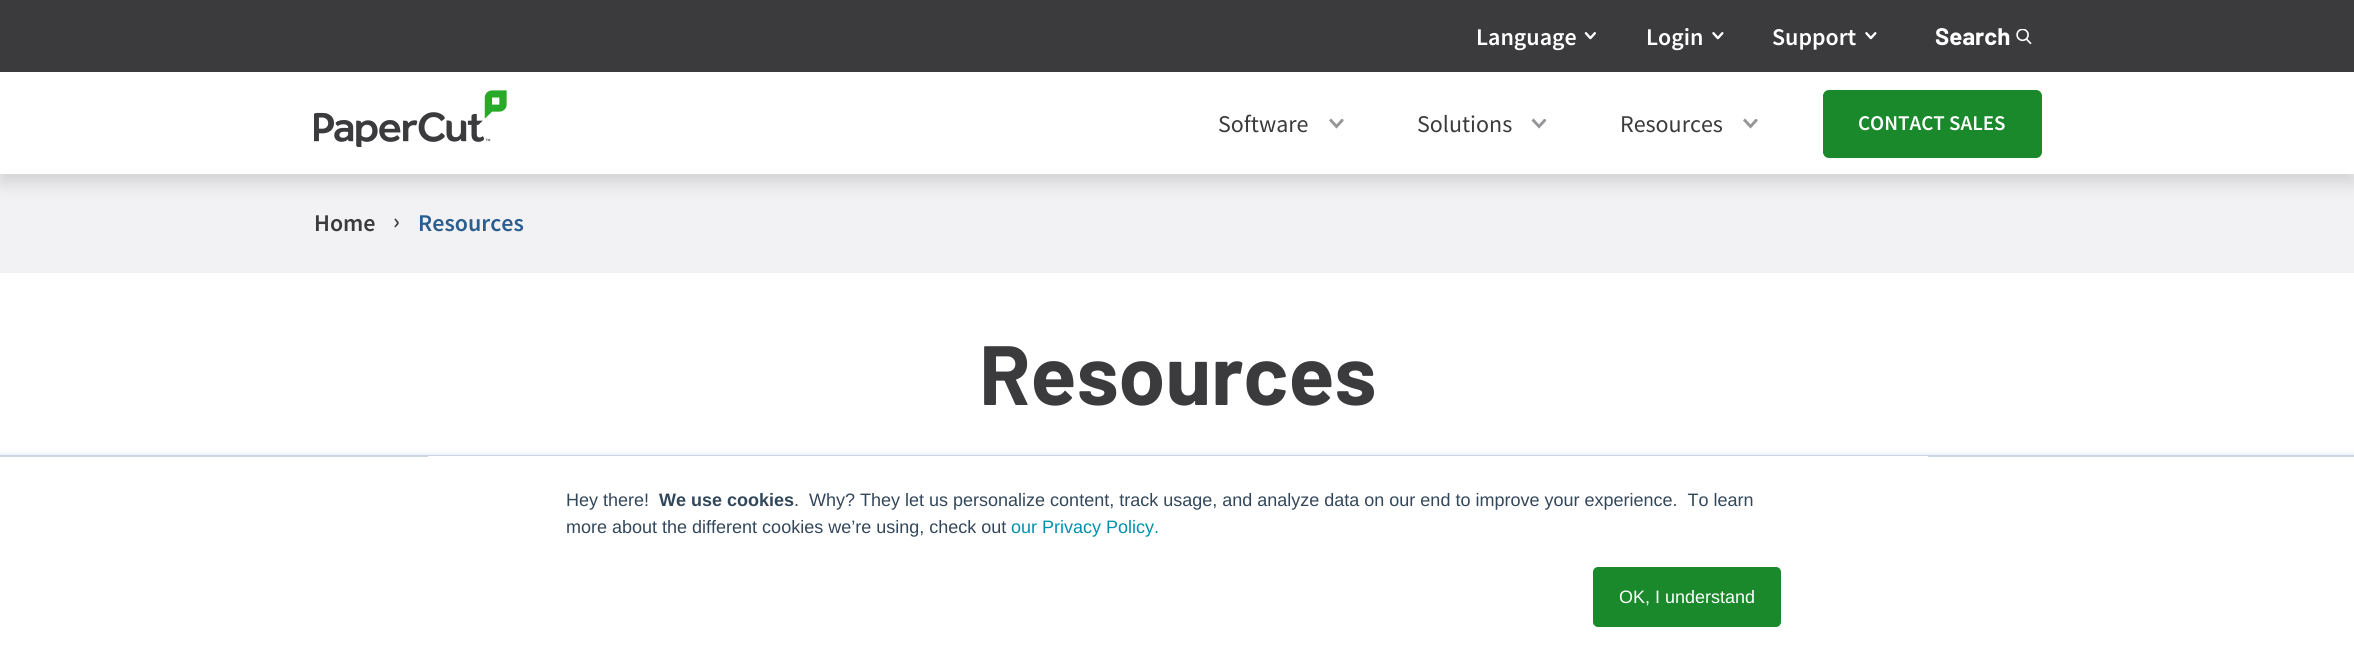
#include <cairo.h>
#include <math.h>
#include <stddef.h>


static void round_rect(cairo_t *cr, double x, double y, double w, double h, double r) {
    cairo_new_sub_path(cr);
    cairo_arc(cr, x + w - r, y + h - r, r, 0, M_PI / 2);
    cairo_arc(cr, x + r, y + h - r, r, M_PI / 2, M_PI);
    cairo_arc(cr, x + r, y + r, r, M_PI, 1.5 * M_PI);
    cairo_arc(cr, x + w - r, y + r, r, 1.5 * M_PI, 2 * M_PI);
    cairo_close_path(cr);
}

static void shadow(cairo_t *cr, double x, double y, double w, double h, double r, double blur, double alpha) {
    cairo_push_group_with_content(cr, CAIRO_CONTENT_ALPHA);
    cairo_set_operator(cr, CAIRO_OPERATOR_SOURCE);
    for (int i = 15; i >= -15 && fmin(w, h) + blur * i / 3 > 0; i -= 2) {
        double e = blur * i / 6;
        cairo_set_source_rgba(cr, 0, 0, 0, alpha * erfc((i - 1) / 8.5) / 2);
        round_rect(cr, x - e, y - e, w + 2 * e, h + 2 * e, fmax(0, fmin(r + e + blur * .6, fmin(w, h) / 2 + e)));
        cairo_fill(cr);
    }
    cairo_pattern_t *soft = cairo_pop_group(cr);
    cairo_mask(cr, soft);
    cairo_pattern_destroy(soft);
}

static void picture(cairo_t *cr, const char *path, double x, double y, double w, double h) {
    cairo_surface_t *image = cairo_image_surface_create_from_png(path);
    cairo_save(cr);
    cairo_set_source_surface(cr, image, x, y);
    cairo_rectangle(cr, x, y, w, h);
    cairo_fill(cr);
    cairo_restore(cr);
    cairo_surface_destroy(image);
}

int main(void) {
    cairo_surface_t *surface = cairo_image_surface_create(CAIRO_FORMAT_RGB24, 2354, 666);
    cairo_t *cr = cairo_create(surface);
    cairo_font_options_t *options = cairo_font_options_create();
    cairo_font_options_set_hint_metrics(options, CAIRO_HINT_METRICS_OFF);
    cairo_font_options_set_hint_style(options, CAIRO_HINT_STYLE_NONE);
    cairo_set_font_options(cr, options);
    cairo_set_miter_limit(cr, 4);
    cairo_set_source_rgb(cr, 1, 1, 1);
    cairo_paint(cr);
    cairo_set_source_rgb(cr, 0.231, 0.231, 0.239);
    cairo_rectangle(cr, 0, 0, 2354, 72);
    cairo_fill(cr);
    cairo_select_font_face(cr, "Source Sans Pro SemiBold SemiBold", CAIRO_FONT_SLANT_NORMAL, CAIRO_FONT_WEIGHT_NORMAL);
    cairo_set_font_size(cr, 24);
    cairo_set_source_rgb(cr, 1, 1, 1);
    cairo_move_to(cr, 1476, 45);
    cairo_show_text(cr, "Language");
    picture(cr, "img1.png", 1584, 32, 12, 8);
    cairo_move_to(cr, 1646, 45);
    cairo_show_text(cr, "Login");
    picture(cr, "img2.png", 1712, 32, 12, 8);
    cairo_move_to(cr, 1772, 45);
    cairo_show_text(cr, "Support");
    picture(cr, "img2.png", 1865, 32, 12, 8);
    cairo_select_font_face(cr, "Barlow", CAIRO_FONT_SLANT_NORMAL, CAIRO_FONT_WEIGHT_BOLD);
    cairo_move_to(cr, 1935, 45);
    cairo_show_text(cr, "Search");
    picture(cr, "img3.png", 2016, 29, 16, 16);
    cairo_set_source_rgb(cr, 0.949, 0.949, 0.957);
    cairo_rectangle(cr, 0, 174, 2354, 99);
    cairo_fill(cr);
    cairo_save(cr);
    cairo_set_fill_rule(cr, CAIRO_FILL_RULE_EVEN_ODD);
    cairo_new_path(cr);
    cairo_move_to(cr, 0, 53);
    cairo_line_to(cr, 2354, 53);
    cairo_line_to(cr, 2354, 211);
    cairo_line_to(cr, 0, 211);
    cairo_close_path(cr);
    cairo_move_to(cr, 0, 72);
    cairo_line_to(cr, 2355, 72);
    cairo_line_to(cr, 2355, 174);
    cairo_line_to(cr, 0, 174);
    cairo_close_path(cr);
    cairo_clip(cr);
    cairo_set_source_rgb(cr, 0.106, 0.106, 0.114);
    shadow(cr, 0, 81, 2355, 102, 0, 9, 0.15);
    cairo_restore(cr);
    picture(cr, "img4.png", 314, 90, 193, 57);
    cairo_select_font_face(cr, "Source Sans Pro", CAIRO_FONT_SLANT_NORMAL, CAIRO_FONT_WEIGHT_NORMAL);
    cairo_set_source_rgb(cr, 0.231, 0.231, 0.239);
    cairo_move_to(cr, 1218, 132);
    cairo_show_text(cr, "Software");
    cairo_new_path(cr);
    cairo_move_to(cr, 1336.5, 127);
    cairo_line_to(cr, 1342.5, 120.5);
    cairo_curve_to(cr, 1342.5, 120.5, 1342.5, 120, 1342, 120);
    cairo_line_to(cr, 1336.5, 126);
    cairo_line_to(cr, 1331, 120);
    cairo_line_to(cr, 1330.5, 120.5);
    cairo_close_path(cr);
    cairo_set_source_rgb(cr, 0.588, 0.588, 0.596);
    cairo_set_line_width(cr, 2.2);
    cairo_stroke(cr);
    cairo_set_source_rgb(cr, 0.231, 0.231, 0.239);
    cairo_move_to(cr, 1417, 132);
    cairo_show_text(cr, "Solutions");
    cairo_new_path(cr);
    cairo_move_to(cr, 1539, 127);
    cairo_line_to(cr, 1545, 120.5);
    cairo_curve_to(cr, 1545, 120.5, 1545, 120, 1544.5, 120);
    cairo_line_to(cr, 1539, 126);
    cairo_line_to(cr, 1533.5, 120);
    cairo_line_to(cr, 1533, 120.5);
    cairo_close_path(cr);
    cairo_set_source_rgb(cr, 0.588, 0.588, 0.596);
    cairo_stroke(cr);
    cairo_set_source_rgb(cr, 0.231, 0.231, 0.239);
    cairo_move_to(cr, 1620, 132);
    cairo_show_text(cr, "Resources");
    cairo_new_path(cr);
    cairo_move_to(cr, 1750.5, 127);
    cairo_line_to(cr, 1756.5, 120.5);
    cairo_curve_to(cr, 1756.5, 120.5, 1756.5, 120, 1756, 120);
    cairo_line_to(cr, 1750.5, 126);
    cairo_line_to(cr, 1745, 120);
    cairo_line_to(cr, 1744.5, 120.5);
    cairo_close_path(cr);
    cairo_set_source_rgb(cr, 0.588, 0.588, 0.596);
    cairo_stroke(cr);
    cairo_set_source_rgb(cr, 0.098, 0.537, 0.169);
    round_rect(cr, 1823, 90, 219, 68, 6);
    cairo_fill(cr);
    cairo_select_font_face(cr, "Source Sans Pro SemiBold SemiBold", CAIRO_FONT_SLANT_NORMAL, CAIRO_FONT_WEIGHT_NORMAL);
    cairo_set_font_size(cr, 21);
    cairo_set_source_rgb(cr, 1, 1, 1);
    cairo_move_to(cr, 1858, 130);
    cairo_show_text(cr, "CONTACT SALES");
    cairo_set_font_size(cr, 24);
    cairo_set_source_rgb(cr, 0.231, 0.231, 0.239);
    cairo_move_to(cr, 314, 231);
    cairo_show_text(cr, "Home");
    cairo_move_to(cr, 393, 229);
    cairo_show_text(cr, "›");
    cairo_set_source_rgb(cr, 0.169, 0.369, 0.561);
    cairo_move_to(cr, 418, 231);
    cairo_show_text(cr, "Resources");
    cairo_select_font_face(cr, "Barlow", CAIRO_FONT_SLANT_NORMAL, CAIRO_FONT_WEIGHT_BOLD);
    cairo_set_font_size(cr, 84);
    cairo_set_source_rgb(cr, 0.231, 0.231, 0.239);
    cairo_move_to(cr, 979, 405);
    cairo_show_text(cr, "Resources");
    cairo_set_source_rgb(cr, 0.918, 0.941, 0.965);
    shadow(cr, 0, 453, 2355, 212, 0, 2, 1);
    cairo_set_source_rgb(cr, 1, 1, 1);
    cairo_rectangle(cr, 0, 457, 2354, 209);
    cairo_fill(cr);
    cairo_set_source_rgb(cr, 0.796, 0.839, 0.886);
    cairo_rectangle(cr, 0, 455, 2354, 2);
    cairo_fill(cr);
    cairo_set_source_rgb(cr, 1, 1, 1);
    cairo_rectangle(cr, 428, 456, 1500, 1);
    cairo_fill(cr);
    cairo_select_font_face(cr, "Liberation Sans", CAIRO_FONT_SLANT_NORMAL, CAIRO_FONT_WEIGHT_NORMAL);
    cairo_set_font_size(cr, 18);
    cairo_set_source_rgb(cr, 0.2, 0.278, 0.357);
    cairo_move_to(cr, 566, 506);
    cairo_show_text(cr, "Hey there!");
    cairo_select_font_face(cr, "Liberation Sans", CAIRO_FONT_SLANT_NORMAL, CAIRO_FONT_WEIGHT_BOLD);
    cairo_move_to(cr, 659, 506);
    cairo_show_text(cr, "We use cookies");
    cairo_select_font_face(cr, "Liberation Sans", CAIRO_FONT_SLANT_NORMAL, CAIRO_FONT_WEIGHT_NORMAL);
    cairo_move_to(cr, 794, 506);
    cairo_show_text(cr, ".  Why? They let us personalize content, track usage, and analyze data on our end to improve your experience.  To learn");
    cairo_move_to(cr, 566, 533);
    cairo_show_text(cr, "more about the different cookies we’re using, check out");
    cairo_set_source_rgb(cr, 0, 0.569, 0.682);
    cairo_move_to(cr, 1011, 533);
    cairo_show_text(cr, "our Privacy Policy.");
    cairo_set_source_rgb(cr, 0.098, 0.537, 0.169);
    round_rect(cr, 1594, 568, 186, 58, 4);
    cairo_fill_preserve(cr);
    cairo_set_line_width(cr, 2);
    cairo_stroke(cr);
    cairo_set_source_rgb(cr, 1, 1, 1);
    cairo_move_to(cr, 1619, 603);
    cairo_show_text(cr, "OK, I understand");
    cairo_surface_write_to_png(surface, "page.png");
    cairo_font_options_destroy(options);
    cairo_destroy(cr);
    cairo_surface_destroy(surface);
    return 0;
}
